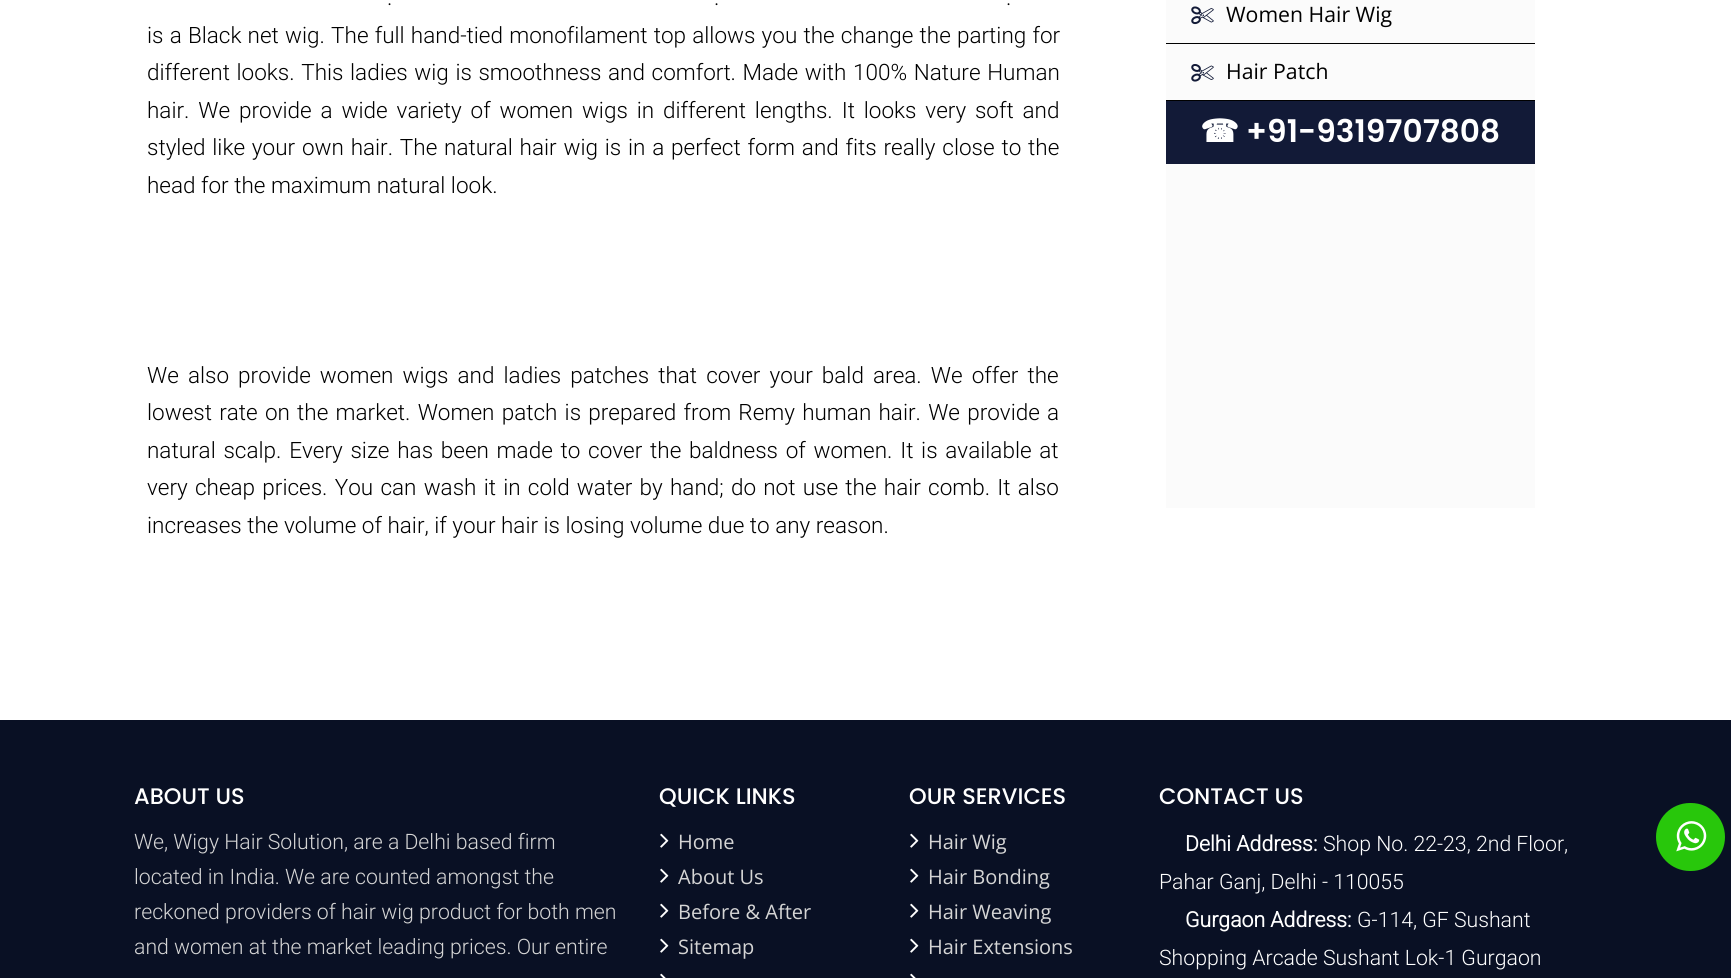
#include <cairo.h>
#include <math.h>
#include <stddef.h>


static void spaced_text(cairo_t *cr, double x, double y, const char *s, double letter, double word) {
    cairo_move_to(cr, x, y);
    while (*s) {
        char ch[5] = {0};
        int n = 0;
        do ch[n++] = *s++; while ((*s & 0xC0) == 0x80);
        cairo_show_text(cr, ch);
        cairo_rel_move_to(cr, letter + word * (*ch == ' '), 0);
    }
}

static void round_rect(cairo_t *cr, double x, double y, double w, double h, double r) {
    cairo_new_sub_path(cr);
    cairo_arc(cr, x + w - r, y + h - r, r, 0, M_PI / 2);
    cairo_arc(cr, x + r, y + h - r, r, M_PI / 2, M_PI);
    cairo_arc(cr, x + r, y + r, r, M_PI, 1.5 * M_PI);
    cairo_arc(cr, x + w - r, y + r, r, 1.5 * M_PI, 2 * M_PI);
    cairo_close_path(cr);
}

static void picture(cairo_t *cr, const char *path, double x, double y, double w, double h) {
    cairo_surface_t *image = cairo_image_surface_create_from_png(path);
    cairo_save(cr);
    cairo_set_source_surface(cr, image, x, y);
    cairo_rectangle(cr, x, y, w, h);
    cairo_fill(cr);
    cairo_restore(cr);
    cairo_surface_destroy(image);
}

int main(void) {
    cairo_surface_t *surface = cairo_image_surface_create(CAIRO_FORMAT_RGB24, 1731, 978);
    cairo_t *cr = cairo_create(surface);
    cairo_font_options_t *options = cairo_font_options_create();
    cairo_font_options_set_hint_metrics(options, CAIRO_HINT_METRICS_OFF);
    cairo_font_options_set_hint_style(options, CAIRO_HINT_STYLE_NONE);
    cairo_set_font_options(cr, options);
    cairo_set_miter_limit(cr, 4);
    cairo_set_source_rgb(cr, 1, 1, 1);
    cairo_paint(cr);
    cairo_select_font_face(cr, "Roboto Light", CAIRO_FONT_SLANT_NORMAL, CAIRO_FONT_WEIGHT_NORMAL);
    cairo_set_font_size(cr, 22.5);
    cairo_set_source_rgb(cr, 0, 0, 0);
    spaced_text(cr, 387, 5, ".", 0, 1);
    spaced_text(cr, 714, 5, ".", 0, 1);
    spaced_text(cr, 1006, 5, ".", 0, 1);
    spaced_text(cr, 147, 43, "is a Black net wig. The full hand-tied monofilament top allows you the change the parting for", 0, 0.7);
    spaced_text(cr, 147, 80, "different looks. This ladies wig is smoothness and comfort. Made with 100% Nature Human", 0, 1.1);
    spaced_text(cr, 147, 118, "hair. We provide a wide variety of women wigs in different lengths. It looks very soft and", 0, 3.4);
    spaced_text(cr, 147, 155, "styled like your own hair. The natural hair wig is in a perfect form and fits really close to the", 0, 1.3);
    cairo_move_to(cr, 147, 193);
    cairo_show_text(cr, "head for the maximum natural look.");
    spaced_text(cr, 147, 383, "We also provide women wigs and ladies patches that cover your bald area. We offer the", 0, 3.6);
    spaced_text(cr, 147, 420, "lowest rate on the market. Women patch is prepared from Remy human hair. We provide a", 0, 1.75);
    spaced_text(cr, 147, 458, "natural scalp. Every size has been made to cover the baldness of women. It is available at", 0, 2.25);
    spaced_text(cr, 147, 495, "very cheap prices. You can wash it in cold water by hand; do not use the hair comb. It also", 0, 1.75);
    cairo_move_to(cr, 147, 533);
    cairo_show_text(cr, "increases the volume of hair, if your hair is losing volume due to any reason.");
    cairo_set_source_rgb(cr, 0.984, 0.984, 0.984);
    cairo_rectangle(cr, 1166, 0, 369, 508);
    cairo_fill(cr);
    cairo_set_source_rgb(cr, 0, 0, 0);
    cairo_rectangle(cr, 1166, 43, 369, 1);
    cairo_fill(cr);
    picture(cr, "img1.png", 1191, 6, 23, 19);
    cairo_select_font_face(cr, "Open Sans", CAIRO_FONT_SLANT_NORMAL, CAIRO_FONT_WEIGHT_NORMAL);
    cairo_set_font_size(cr, 21.25);
    cairo_move_to(cr, 1226, 22);
    cairo_show_text(cr, "Women Hair Wig");
    cairo_rectangle(cr, 1166, 100, 369, 1);
    cairo_fill(cr);
    picture(cr, "img2.png", 1191, 64, 23, 18);
    cairo_move_to(cr, 1226, 79);
    cairo_show_text(cr, "Hair Patch");
    cairo_set_source_rgb(cr, 0.071, 0.102, 0.216);
    cairo_rectangle(cr, 1166, 101, 369, 63);
    cairo_fill(cr);
    cairo_select_font_face(cr, "DejaVu Sans", CAIRO_FONT_SLANT_NORMAL, CAIRO_FONT_WEIGHT_BOLD);
    cairo_set_font_size(cr, 31.25);
    cairo_set_source_rgb(cr, 1, 1, 1);
    cairo_move_to(cr, 1200, 142);
    cairo_show_text(cr, "☎");
    cairo_select_font_face(cr, "Poppins SemiBold", CAIRO_FONT_SLANT_NORMAL, CAIRO_FONT_WEIGHT_NORMAL);
    cairo_move_to(cr, 1246, 142);
    cairo_show_text(cr, "+91-9319707808");
    cairo_set_source_rgb(cr, 0.039, 0.063, 0.141);
    cairo_rectangle(cr, 0, 720, 1731, 258);
    cairo_fill(cr);
    cairo_select_font_face(cr, "Poppins Medium", CAIRO_FONT_SLANT_NORMAL, CAIRO_FONT_WEIGHT_NORMAL);
    cairo_set_font_size(cr, 22.5);
    cairo_set_source_rgb(cr, 1, 1, 1);
    cairo_move_to(cr, 134, 804);
    cairo_show_text(cr, "ABOUT US");
    cairo_select_font_face(cr, "Roboto Light", CAIRO_FONT_SLANT_NORMAL, CAIRO_FONT_WEIGHT_NORMAL);
    cairo_set_font_size(cr, 21.25);
    cairo_set_source_rgb(cr, 0.835, 0.835, 0.835);
    cairo_move_to(cr, 134, 849);
    cairo_show_text(cr, "We, Wigy Hair Solution, are a Delhi based firm");
    cairo_move_to(cr, 134, 884);
    cairo_show_text(cr, "located in India. We are counted amongst the");
    cairo_move_to(cr, 134, 919);
    cairo_show_text(cr, "reckoned providers of hair wig product for both men");
    cairo_move_to(cr, 134, 954);
    cairo_show_text(cr, "and women at the market leading prices. Our entire");
    cairo_select_font_face(cr, "Poppins Medium", CAIRO_FONT_SLANT_NORMAL, CAIRO_FONT_WEIGHT_NORMAL);
    cairo_set_font_size(cr, 22.5);
    cairo_set_source_rgb(cr, 1, 1, 1);
    cairo_move_to(cr, 659, 804);
    cairo_show_text(cr, "QUICK LINKS");
    picture(cr, "img3.png", 660, 833, 9, 15);
    cairo_select_font_face(cr, "Open Sans", CAIRO_FONT_SLANT_NORMAL, CAIRO_FONT_WEIGHT_NORMAL);
    cairo_set_font_size(cr, 20);
    cairo_set_source_rgb(cr, 0.835, 0.835, 0.835);
    cairo_move_to(cr, 678, 849);
    cairo_show_text(cr, "Home");
    picture(cr, "img3.png", 660, 868, 9, 15);
    cairo_move_to(cr, 678, 884);
    cairo_show_text(cr, "About Us");
    picture(cr, "img3.png", 660, 903, 9, 15);
    cairo_move_to(cr, 678, 919);
    cairo_show_text(cr, "Before & After");
    picture(cr, "img3.png", 660, 938, 9, 15);
    cairo_move_to(cr, 678, 954);
    cairo_show_text(cr, "Sitemap");
    picture(cr, "img4.png", 660, 973, 6, 5);
    cairo_select_font_face(cr, "Poppins Medium", CAIRO_FONT_SLANT_NORMAL, CAIRO_FONT_WEIGHT_NORMAL);
    cairo_set_font_size(cr, 22.5);
    cairo_set_source_rgb(cr, 1, 1, 1);
    cairo_move_to(cr, 909, 804);
    cairo_show_text(cr, "OUR SERVICES");
    picture(cr, "img3.png", 910, 833, 9, 15);
    cairo_select_font_face(cr, "Open Sans", CAIRO_FONT_SLANT_NORMAL, CAIRO_FONT_WEIGHT_NORMAL);
    cairo_set_font_size(cr, 20);
    cairo_set_source_rgb(cr, 0.835, 0.835, 0.835);
    cairo_move_to(cr, 928, 849);
    cairo_show_text(cr, "Hair Wig");
    picture(cr, "img3.png", 910, 868, 9, 15);
    cairo_move_to(cr, 928, 884);
    cairo_show_text(cr, "Hair Bonding");
    picture(cr, "img3.png", 910, 903, 9, 15);
    cairo_move_to(cr, 928, 919);
    cairo_show_text(cr, "Hair Weaving");
    picture(cr, "img3.png", 910, 938, 9, 15);
    cairo_move_to(cr, 928, 954);
    cairo_show_text(cr, "Hair Extensions");
    picture(cr, "img4.png", 910, 973, 6, 5);
    cairo_select_font_face(cr, "Poppins Medium", CAIRO_FONT_SLANT_NORMAL, CAIRO_FONT_WEIGHT_NORMAL);
    cairo_set_font_size(cr, 22.5);
    cairo_set_source_rgb(cr, 1, 1, 1);
    cairo_move_to(cr, 1159, 804);
    cairo_show_text(cr, "CONTACT US");
    cairo_select_font_face(cr, "Roboto", CAIRO_FONT_SLANT_NORMAL, CAIRO_FONT_WEIGHT_BOLD);
    cairo_set_font_size(cr, 21.25);
    cairo_move_to(cr, 1185, 851);
    cairo_show_text(cr, "Delhi Address:");
    cairo_select_font_face(cr, "Roboto Light", CAIRO_FONT_SLANT_NORMAL, CAIRO_FONT_WEIGHT_NORMAL);
    cairo_move_to(cr, 1323, 851);
    cairo_show_text(cr, "Shop No. 22-23, 2nd Floor,");
    cairo_move_to(cr, 1159, 889);
    cairo_show_text(cr, "Pahar Ganj, Delhi - 110055");
    cairo_select_font_face(cr, "Roboto", CAIRO_FONT_SLANT_NORMAL, CAIRO_FONT_WEIGHT_BOLD);
    cairo_move_to(cr, 1185, 927);
    cairo_show_text(cr, "Gurgaon Address:");
    cairo_select_font_face(cr, "Roboto Light", CAIRO_FONT_SLANT_NORMAL, CAIRO_FONT_WEIGHT_NORMAL);
    cairo_move_to(cr, 1357, 927);
    cairo_show_text(cr, "G-114, GF Sushant");
    cairo_move_to(cr, 1159, 965);
    cairo_show_text(cr, "Shopping Arcade Sushant Lok-1 Gurgaon");
    cairo_set_source_rgb(cr, 0.157, 0.78, 0.043);
    round_rect(cr, 1656, 803, 69, 68, 34);
    cairo_fill(cr);
    picture(cr, "img5.png", 1676, 821, 31, 31);
    cairo_surface_write_to_png(surface, "page.png");
    cairo_font_options_destroy(options);
    cairo_destroy(cr);
    cairo_surface_destroy(surface);
    return 0;
}
